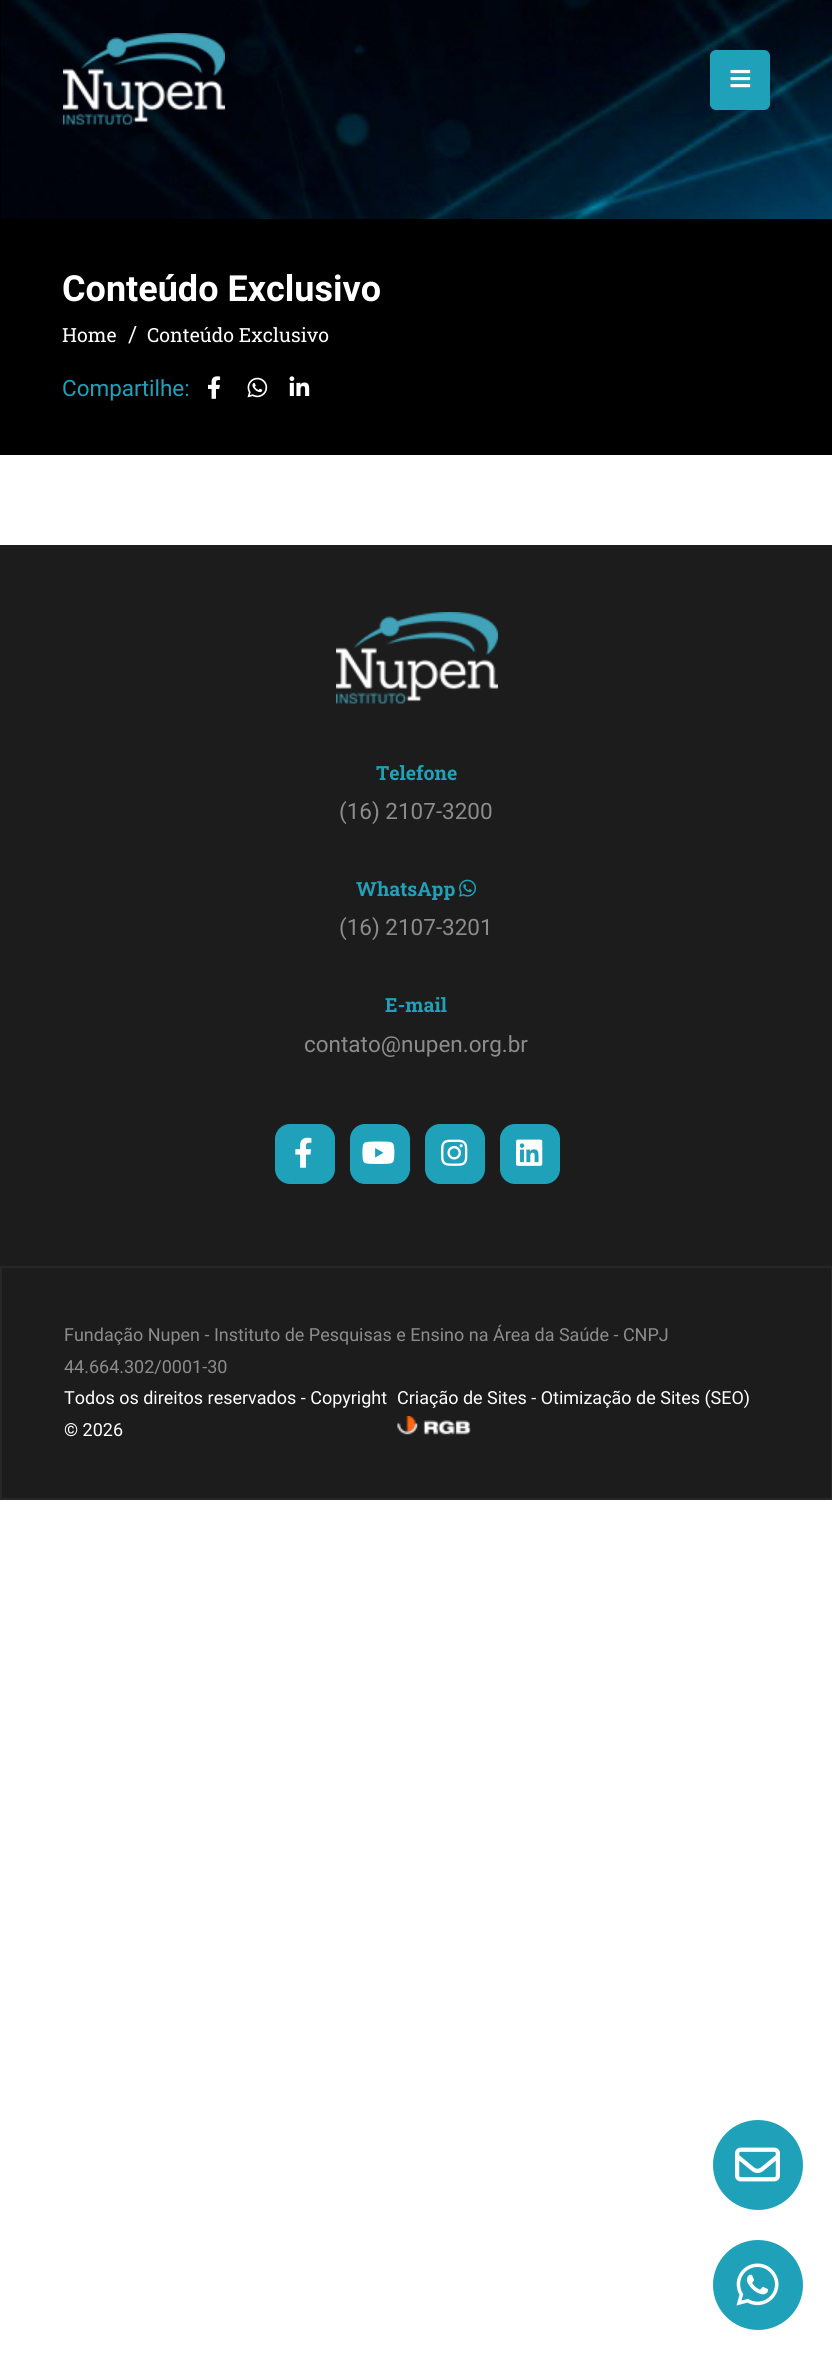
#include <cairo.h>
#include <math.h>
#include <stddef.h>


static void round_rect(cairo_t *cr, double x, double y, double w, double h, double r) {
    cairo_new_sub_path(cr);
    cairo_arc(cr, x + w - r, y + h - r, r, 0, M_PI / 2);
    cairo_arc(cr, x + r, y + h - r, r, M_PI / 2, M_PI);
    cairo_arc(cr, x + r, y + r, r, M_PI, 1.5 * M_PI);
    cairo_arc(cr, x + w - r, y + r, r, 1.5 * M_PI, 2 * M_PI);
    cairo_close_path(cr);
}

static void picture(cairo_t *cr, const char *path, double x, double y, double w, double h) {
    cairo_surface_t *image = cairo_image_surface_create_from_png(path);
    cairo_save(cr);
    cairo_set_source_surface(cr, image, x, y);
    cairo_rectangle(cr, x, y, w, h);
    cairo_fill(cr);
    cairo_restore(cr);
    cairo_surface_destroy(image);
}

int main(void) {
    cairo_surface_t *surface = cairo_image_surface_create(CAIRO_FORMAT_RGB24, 832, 2359);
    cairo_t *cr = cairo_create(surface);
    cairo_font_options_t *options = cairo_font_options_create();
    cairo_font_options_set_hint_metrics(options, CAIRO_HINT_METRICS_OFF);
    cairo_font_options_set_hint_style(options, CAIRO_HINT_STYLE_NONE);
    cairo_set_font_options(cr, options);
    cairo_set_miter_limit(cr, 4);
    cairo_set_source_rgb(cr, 1, 1, 1);
    cairo_paint(cr);
    cairo_set_source_rgb(cr, 0, 0, 0);
    cairo_rectangle(cr, 0, 0, 832, 455);
    cairo_fill(cr);
    picture(cr, "img3.png", 0, 0, 832, 219);
    picture(cr, "img1.png", 63, 33, 162, 92);
    cairo_set_source_rgb(cr, 0.122, 0.631, 0.725);
    round_rect(cr, 710, 50, 60, 60, 6);
    cairo_fill(cr);
    picture(cr, "img2.png", 730, 69, 21, 19);
    cairo_select_font_face(cr, "Roboto", CAIRO_FONT_SLANT_NORMAL, CAIRO_FONT_WEIGHT_BOLD);
    cairo_set_font_size(cr, 36);
    cairo_set_source_rgb(cr, 1, 1, 1);
    cairo_move_to(cr, 62, 301);
    cairo_show_text(cr, "Conteúdo Exclusivo");
    cairo_select_font_face(cr, "Roboto Slab", CAIRO_FONT_SLANT_NORMAL, CAIRO_FONT_WEIGHT_NORMAL);
    cairo_set_font_size(cr, 19.5);
    cairo_move_to(cr, 62, 342);
    cairo_show_text(cr, "Home");
    cairo_select_font_face(cr, "Roboto", CAIRO_FONT_SLANT_NORMAL, CAIRO_FONT_WEIGHT_NORMAL);
    cairo_set_font_size(cr, 22.5);
    cairo_move_to(cr, 128, 342);
    cairo_show_text(cr, "/");
    cairo_select_font_face(cr, "Roboto Slab", CAIRO_FONT_SLANT_NORMAL, CAIRO_FONT_WEIGHT_NORMAL);
    cairo_set_font_size(cr, 19.5);
    cairo_move_to(cr, 147, 342);
    cairo_show_text(cr, "Conteúdo Exclusivo");
    cairo_select_font_face(cr, "Roboto", CAIRO_FONT_SLANT_NORMAL, CAIRO_FONT_WEIGHT_NORMAL);
    cairo_set_font_size(cr, 22.5);
    cairo_set_source_rgb(cr, 0.122, 0.631, 0.725);
    cairo_move_to(cr, 62, 396);
    cairo_show_text(cr, "Compartilhe:");
    picture(cr, "img4.png", 208, 376, 13, 23);
    picture(cr, "img5.png", 247, 377, 21, 21);
    picture(cr, "img6.png", 289, 376, 21, 20);
    cairo_set_source_rgb(cr, 0.11, 0.11, 0.11);
    cairo_rectangle(cr, 0, 545, 832, 953);
    cairo_fill(cr);
    picture(cr, "img7.png", 336, 612, 162, 92);
    cairo_select_font_face(cr, "Roboto Slab", CAIRO_FONT_SLANT_NORMAL, CAIRO_FONT_WEIGHT_BOLD);
    cairo_set_font_size(cr, 19.5);
    cairo_set_source_rgb(cr, 0.122, 0.631, 0.725);
    cairo_move_to(cr, 376, 780);
    cairo_show_text(cr, "Telefone");
    cairo_select_font_face(cr, "Roboto", CAIRO_FONT_SLANT_NORMAL, CAIRO_FONT_WEIGHT_NORMAL);
    cairo_set_font_size(cr, 22.5);
    cairo_set_source_rgb(cr, 0.549, 0.549, 0.549);
    cairo_move_to(cr, 339, 819);
    cairo_show_text(cr, "(16) 2107-3200");
    cairo_select_font_face(cr, "Roboto Slab", CAIRO_FONT_SLANT_NORMAL, CAIRO_FONT_WEIGHT_BOLD);
    cairo_set_font_size(cr, 19.5);
    cairo_set_source_rgb(cr, 0.122, 0.631, 0.725);
    cairo_move_to(cr, 356, 896);
    cairo_show_text(cr, "WhatsApp");
    picture(cr, "img8.png", 459, 879, 18, 18);
    cairo_select_font_face(cr, "Roboto", CAIRO_FONT_SLANT_NORMAL, CAIRO_FONT_WEIGHT_NORMAL);
    cairo_set_font_size(cr, 22.5);
    cairo_set_source_rgb(cr, 0.549, 0.549, 0.549);
    cairo_move_to(cr, 339, 935);
    cairo_show_text(cr, "(16) 2107-3201");
    cairo_select_font_face(cr, "Roboto Slab", CAIRO_FONT_SLANT_NORMAL, CAIRO_FONT_WEIGHT_BOLD);
    cairo_set_font_size(cr, 19.5);
    cairo_set_source_rgb(cr, 0.122, 0.631, 0.725);
    cairo_move_to(cr, 385, 1012);
    cairo_show_text(cr, "E-mail");
    cairo_select_font_face(cr, "Roboto", CAIRO_FONT_SLANT_NORMAL, CAIRO_FONT_WEIGHT_NORMAL);
    cairo_set_font_size(cr, 22.5);
    cairo_set_source_rgb(cr, 0.549, 0.549, 0.549);
    cairo_move_to(cr, 304, 1052);
    cairo_show_text(cr, "contato@nupen.org.br");
    cairo_set_source_rgb(cr, 0.122, 0.631, 0.725);
    round_rect(cr, 275, 1124, 60, 60, 15);
    cairo_fill(cr);
    picture(cr, "img9.png", 295, 1137, 17, 31);
    round_rect(cr, 350, 1124, 60, 60, 15);
    cairo_fill(cr);
    picture(cr, "img10.png", 362, 1141, 33, 23);
    round_rect(cr, 425, 1124, 60, 60, 15);
    cairo_fill(cr);
    picture(cr, "img11.png", 441, 1139, 27, 27);
    round_rect(cr, 500, 1124, 60, 60, 15);
    cairo_fill(cr);
    picture(cr, "img12.png", 516, 1139, 27, 27);
    cairo_rectangle(cr, 1, 1267, 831, 232);
    cairo_set_source_rgb(cr, 0.153, 0.153, 0.153);
    cairo_stroke(cr);
    cairo_set_font_size(cr, 18);
    cairo_set_source_rgb(cr, 0.549, 0.549, 0.549);
    cairo_move_to(cr, 64, 1341);
    cairo_show_text(cr, "Fundação Nupen - Instituto de Pesquisas e Ensino na Área da Saúde - CNPJ");
    cairo_move_to(cr, 64, 1373);
    cairo_show_text(cr, "44.664.302/0001-30");
    cairo_set_source_rgb(cr, 1, 1, 1);
    cairo_move_to(cr, 64, 1404);
    cairo_show_text(cr, "Todos os direitos reservados - Copyright");
    cairo_move_to(cr, 64, 1436);
    cairo_show_text(cr, "© 2026");
    cairo_move_to(cr, 397, 1404);
    cairo_show_text(cr, "Criação de Sites - Otimização de Sites (SEO)");
    picture(cr, "img13.png", 397, 1416, 74, 19);
    cairo_set_source_rgb(cr, 0.122, 0.631, 0.725);
    cairo_arc(cr, 758, 2165, 45, 0, 2 * M_PI);
    cairo_fill(cr);
    picture(cr, "img14.png", 735, 2147, 45, 35);
    cairo_arc(cr, 758, 2285, 45, 0, 2 * M_PI);
    cairo_fill(cr);
    picture(cr, "img15.png", 736, 2263, 43, 43);
    cairo_surface_write_to_png(surface, "page.png");
    cairo_font_options_destroy(options);
    cairo_destroy(cr);
    cairo_surface_destroy(surface);
    return 0;
}
